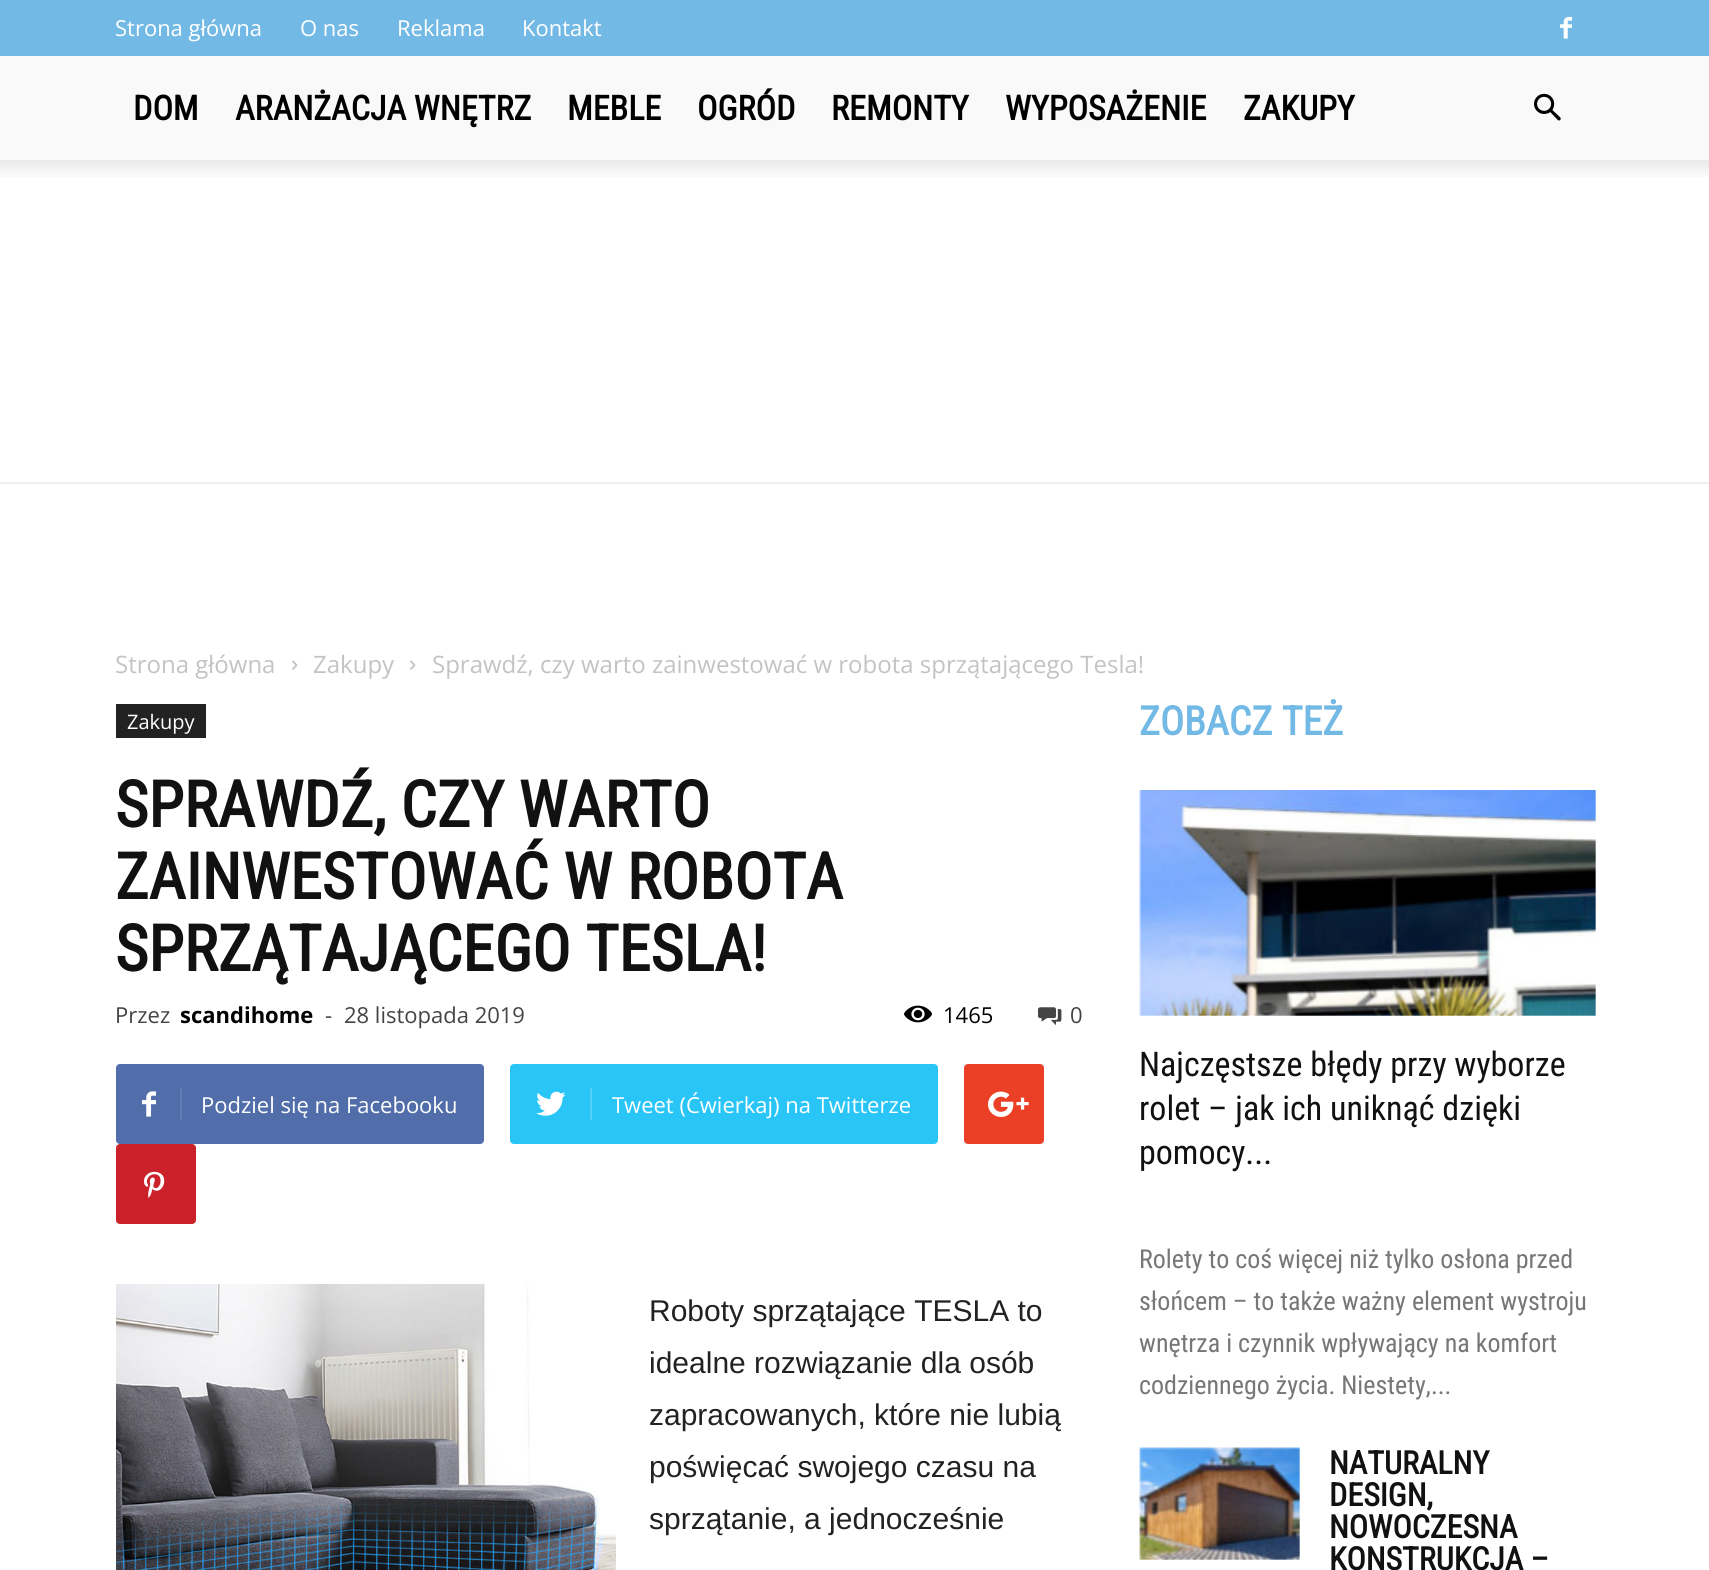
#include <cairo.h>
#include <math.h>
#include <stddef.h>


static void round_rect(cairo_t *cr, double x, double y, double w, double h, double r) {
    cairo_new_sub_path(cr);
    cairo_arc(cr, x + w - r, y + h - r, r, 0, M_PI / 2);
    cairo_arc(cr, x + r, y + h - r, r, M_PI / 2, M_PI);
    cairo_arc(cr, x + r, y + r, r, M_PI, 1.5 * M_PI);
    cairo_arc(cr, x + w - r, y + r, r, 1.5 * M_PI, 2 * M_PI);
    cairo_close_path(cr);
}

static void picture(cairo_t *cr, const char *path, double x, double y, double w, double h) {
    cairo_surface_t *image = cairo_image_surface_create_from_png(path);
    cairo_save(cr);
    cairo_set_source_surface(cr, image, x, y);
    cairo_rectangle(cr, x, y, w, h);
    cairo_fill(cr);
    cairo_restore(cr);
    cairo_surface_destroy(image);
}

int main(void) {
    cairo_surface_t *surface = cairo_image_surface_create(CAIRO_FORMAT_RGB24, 1709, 1570);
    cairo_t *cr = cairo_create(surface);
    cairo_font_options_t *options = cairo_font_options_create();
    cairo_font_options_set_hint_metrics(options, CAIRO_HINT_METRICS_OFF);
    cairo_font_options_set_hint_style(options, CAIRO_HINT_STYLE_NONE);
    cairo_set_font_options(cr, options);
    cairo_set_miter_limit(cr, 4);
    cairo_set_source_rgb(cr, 1, 1, 1);
    cairo_paint(cr);
    cairo_set_source_rgb(cr, 0.451, 0.725, 0.902);
    cairo_rectangle(cr, 0, 0, 1709, 56);
    cairo_fill(cr);
    cairo_select_font_face(cr, "Open Sans", CAIRO_FONT_SLANT_NORMAL, CAIRO_FONT_WEIGHT_NORMAL);
    cairo_set_font_size(cr, 22);
    cairo_set_source_rgb(cr, 1, 1, 1);
    cairo_move_to(cr, 115, 36);
    cairo_show_text(cr, "Strona główna");
    cairo_move_to(cr, 300, 36);
    cairo_show_text(cr, "O nas");
    cairo_move_to(cr, 397, 36);
    cairo_show_text(cr, "Reklama");
    cairo_move_to(cr, 522, 36);
    cairo_show_text(cr, "Kontakt");
    picture(cr, "img1.png", 1560, 16, 12, 23);
    cairo_set_source_rgb(cr, 0.976, 0.976, 0.976);
    cairo_rectangle(cr, 0, 56, 1709, 104);
    cairo_fill(cr);
    cairo_select_font_face(cr, "Roboto Condensed", CAIRO_FONT_SLANT_NORMAL, CAIRO_FONT_WEIGHT_BOLD);
    cairo_set_font_size(cr, 34);
    cairo_set_source_rgb(cr, 0, 0, 0);
    cairo_move_to(cr, 133, 120);
    cairo_show_text(cr, "DOM");
    cairo_move_to(cr, 235, 120);
    cairo_show_text(cr, "ARANŻACJA WNĘTRZ");
    cairo_move_to(cr, 567, 120);
    cairo_show_text(cr, "MEBLE");
    cairo_move_to(cr, 697, 120);
    cairo_show_text(cr, "OGRÓD");
    cairo_move_to(cr, 831, 120);
    cairo_show_text(cr, "REMONTY");
    cairo_move_to(cr, 1005, 120);
    cairo_show_text(cr, "WYPOSAŻENIE");
    cairo_move_to(cr, 1243, 120);
    cairo_show_text(cr, "ZAKUPY");
    picture(cr, "img2.png", 1534, 93, 27, 28);
    picture(cr, "img3.png", 0, 160, 1709, 17);
    cairo_set_source_rgb(cr, 0.933, 0.933, 0.933);
    cairo_rectangle(cr, 0, 482, 1709, 2);
    cairo_fill(cr);
    cairo_select_font_face(cr, "Open Sans", CAIRO_FONT_SLANT_NORMAL, CAIRO_FONT_WEIGHT_NORMAL);
    cairo_set_font_size(cr, 24);
    cairo_set_source_rgb(cr, 0.765, 0.765, 0.765);
    cairo_move_to(cr, 115, 673);
    cairo_show_text(cr, "Strona główna");
    picture(cr, "img4.png", 292, 660, 6, 10);
    cairo_move_to(cr, 313, 673);
    cairo_show_text(cr, "Zakupy");
    picture(cr, "img4.png", 410, 660, 6, 10);
    cairo_move_to(cr, 432, 673);
    cairo_show_text(cr, "Sprawdź, czy warto zainwestować w robota sprzątającego Tesla!");
    cairo_set_source_rgb(cr, 0.133, 0.133, 0.133);
    cairo_rectangle(cr, 116, 704, 90, 34);
    cairo_fill(cr);
    cairo_set_font_size(cr, 20);
    cairo_set_source_rgb(cr, 1, 1, 1);
    cairo_move_to(cr, 127, 729);
    cairo_show_text(cr, "Zakupy");
    cairo_select_font_face(cr, "Roboto Condensed", CAIRO_FONT_SLANT_NORMAL, CAIRO_FONT_WEIGHT_BOLD);
    cairo_set_font_size(cr, 64);
    cairo_set_source_rgb(cr, 0.067, 0.067, 0.067);
    cairo_move_to(cr, 115, 827);
    cairo_show_text(cr, "SPRAWDŹ, CZY WARTO");
    cairo_move_to(cr, 115, 899);
    cairo_show_text(cr, "ZAINWESTOWAĆ W ROBOTA");
    cairo_move_to(cr, 115, 971);
    cairo_show_text(cr, "SPRZĄTAJĄCEGO TESLA!");
    cairo_select_font_face(cr, "Open Sans", CAIRO_FONT_SLANT_NORMAL, CAIRO_FONT_WEIGHT_NORMAL);
    cairo_set_font_size(cr, 22);
    cairo_set_source_rgb(cr, 0.267, 0.267, 0.267);
    cairo_move_to(cr, 115, 1023);
    cairo_show_text(cr, "Przez");
    cairo_select_font_face(cr, "Open Sans", CAIRO_FONT_SLANT_NORMAL, CAIRO_FONT_WEIGHT_BOLD);
    cairo_set_source_rgb(cr, 0, 0, 0);
    cairo_move_to(cr, 180, 1023);
    cairo_show_text(cr, "scandihome");
    cairo_select_font_face(cr, "Open Sans", CAIRO_FONT_SLANT_NORMAL, CAIRO_FONT_WEIGHT_NORMAL);
    cairo_set_source_rgb(cr, 0.267, 0.267, 0.267);
    cairo_move_to(cr, 325, 1023);
    cairo_show_text(cr, "-");
    cairo_move_to(cr, 344, 1023);
    cairo_show_text(cr, "28 listopada 2019");
    picture(cr, "img5.png", 904, 1005, 28, 18);
    cairo_set_source_rgb(cr, 0, 0, 0);
    cairo_move_to(cr, 943, 1023);
    cairo_show_text(cr, "1465");
    picture(cr, "img6.png", 1038, 1007, 24, 19);
    cairo_set_source_rgb(cr, 0.267, 0.267, 0.267);
    cairo_move_to(cr, 1070, 1023);
    cairo_show_text(cr, "0");
    cairo_set_source_rgb(cr, 0.318, 0.431, 0.671);
    round_rect(cr, 116, 1064, 368, 80, 4);
    cairo_fill(cr);
    picture(cr, "img7.png", 142, 1091, 14, 26);
    cairo_set_source_rgb(cr, 0.384, 0.49, 0.702);
    cairo_rectangle(cr, 180, 1088, 2, 32);
    cairo_fill(cr);
    cairo_set_source_rgb(cr, 1, 1, 1);
    cairo_move_to(cr, 201, 1113);
    cairo_show_text(cr, "Podziel się na Facebooku");
    cairo_set_source_rgb(cr, 0.161, 0.773, 0.965);
    round_rect(cr, 510, 1064, 428, 80, 4);
    cairo_fill(cr);
    picture(cr, "img8.png", 536, 1091, 30, 25);
    cairo_set_source_rgb(cr, 0.329, 0.82, 0.973);
    cairo_rectangle(cr, 590, 1088, 2, 32);
    cairo_fill(cr);
    cairo_set_source_rgb(cr, 1, 1, 1);
    cairo_move_to(cr, 612, 1113);
    cairo_show_text(cr, "Tweet (Ćwierkaj) na Twitterze");
    cairo_set_source_rgb(cr, 0.922, 0.251, 0.149);
    round_rect(cr, 964, 1064, 80, 80, 4);
    cairo_fill(cr);
    picture(cr, "img9.png", 988, 1091, 41, 26);
    cairo_set_source_rgb(cr, 0.792, 0.129, 0.165);
    round_rect(cr, 116, 1144, 80, 80, 4);
    cairo_fill(cr);
    picture(cr, "img10.png", 144, 1171, 21, 27);
    picture(cr, "img11.png", 116, 1284, 500, 286);
    cairo_select_font_face(cr, "Liberation Sans", CAIRO_FONT_SLANT_NORMAL, CAIRO_FONT_WEIGHT_NORMAL);
    cairo_set_font_size(cr, 30);
    cairo_set_source_rgb(cr, 0.133, 0.133, 0.133);
    cairo_move_to(cr, 649, 1321);
    cairo_show_text(cr, "Roboty sprzątające TESLA to");
    cairo_move_to(cr, 649, 1373);
    cairo_show_text(cr, "idealne rozwiązanie dla osób");
    cairo_move_to(cr, 649, 1425);
    cairo_show_text(cr, "zapracowanych, które nie lubią");
    cairo_move_to(cr, 649, 1477);
    cairo_show_text(cr, "poświęcać swojego czasu na");
    cairo_move_to(cr, 649, 1529);
    cairo_show_text(cr, "sprzątanie, a jednocześnie");
    cairo_select_font_face(cr, "Roboto Condensed", CAIRO_FONT_SLANT_NORMAL, CAIRO_FONT_WEIGHT_BOLD);
    cairo_set_font_size(cr, 40);
    cairo_set_source_rgb(cr, 0.451, 0.725, 0.902);
    cairo_move_to(cr, 1139, 735);
    cairo_show_text(cr, "ZOBACZ TEŻ");
    picture(cr, "img12.png", 1139, 790, 457, 226);
    cairo_select_font_face(cr, "Roboto Condensed", CAIRO_FONT_SLANT_NORMAL, CAIRO_FONT_WEIGHT_NORMAL);
    cairo_set_font_size(cr, 34);
    cairo_set_source_rgb(cr, 0.067, 0.067, 0.067);
    cairo_move_to(cr, 1139, 1076);
    cairo_show_text(cr, "Najczęstsze błędy przy wyborze");
    cairo_move_to(cr, 1139, 1120);
    cairo_show_text(cr, "rolet – jak ich uniknąć dzięki");
    cairo_move_to(cr, 1139, 1164);
    cairo_show_text(cr, "pomocy...");
    cairo_set_font_size(cr, 26);
    cairo_set_source_rgb(cr, 0.467, 0.467, 0.467);
    cairo_move_to(cr, 1139, 1268);
    cairo_show_text(cr, "Rolety to coś więcej niż tylko osłona przed");
    cairo_move_to(cr, 1139, 1310);
    cairo_show_text(cr, "słońcem – to także ważny element wystroju");
    cairo_move_to(cr, 1139, 1352);
    cairo_show_text(cr, "wnętrza i czynnik wpływający na komfort");
    cairo_move_to(cr, 1139, 1394);
    cairo_show_text(cr, "codziennego życia. Niestety,...");
    picture(cr, "img13.png", 1139, 1447, 161, 113);
    cairo_select_font_face(cr, "Roboto Condensed", CAIRO_FONT_SLANT_NORMAL, CAIRO_FONT_WEIGHT_BOLD);
    cairo_set_font_size(cr, 32);
    cairo_set_source_rgb(cr, 0.067, 0.067, 0.067);
    cairo_move_to(cr, 1329, 1474);
    cairo_show_text(cr, "NATURALNY");
    cairo_move_to(cr, 1329, 1506);
    cairo_show_text(cr, "DESIGN,");
    cairo_move_to(cr, 1329, 1538);
    cairo_show_text(cr, "NOWOCZESNA");
    cairo_move_to(cr, 1329, 1570);
    cairo_show_text(cr, "KONSTRUKCJA –");
    cairo_surface_write_to_png(surface, "page.png");
    cairo_font_options_destroy(options);
    cairo_destroy(cr);
    cairo_surface_destroy(surface);
    return 0;
}
